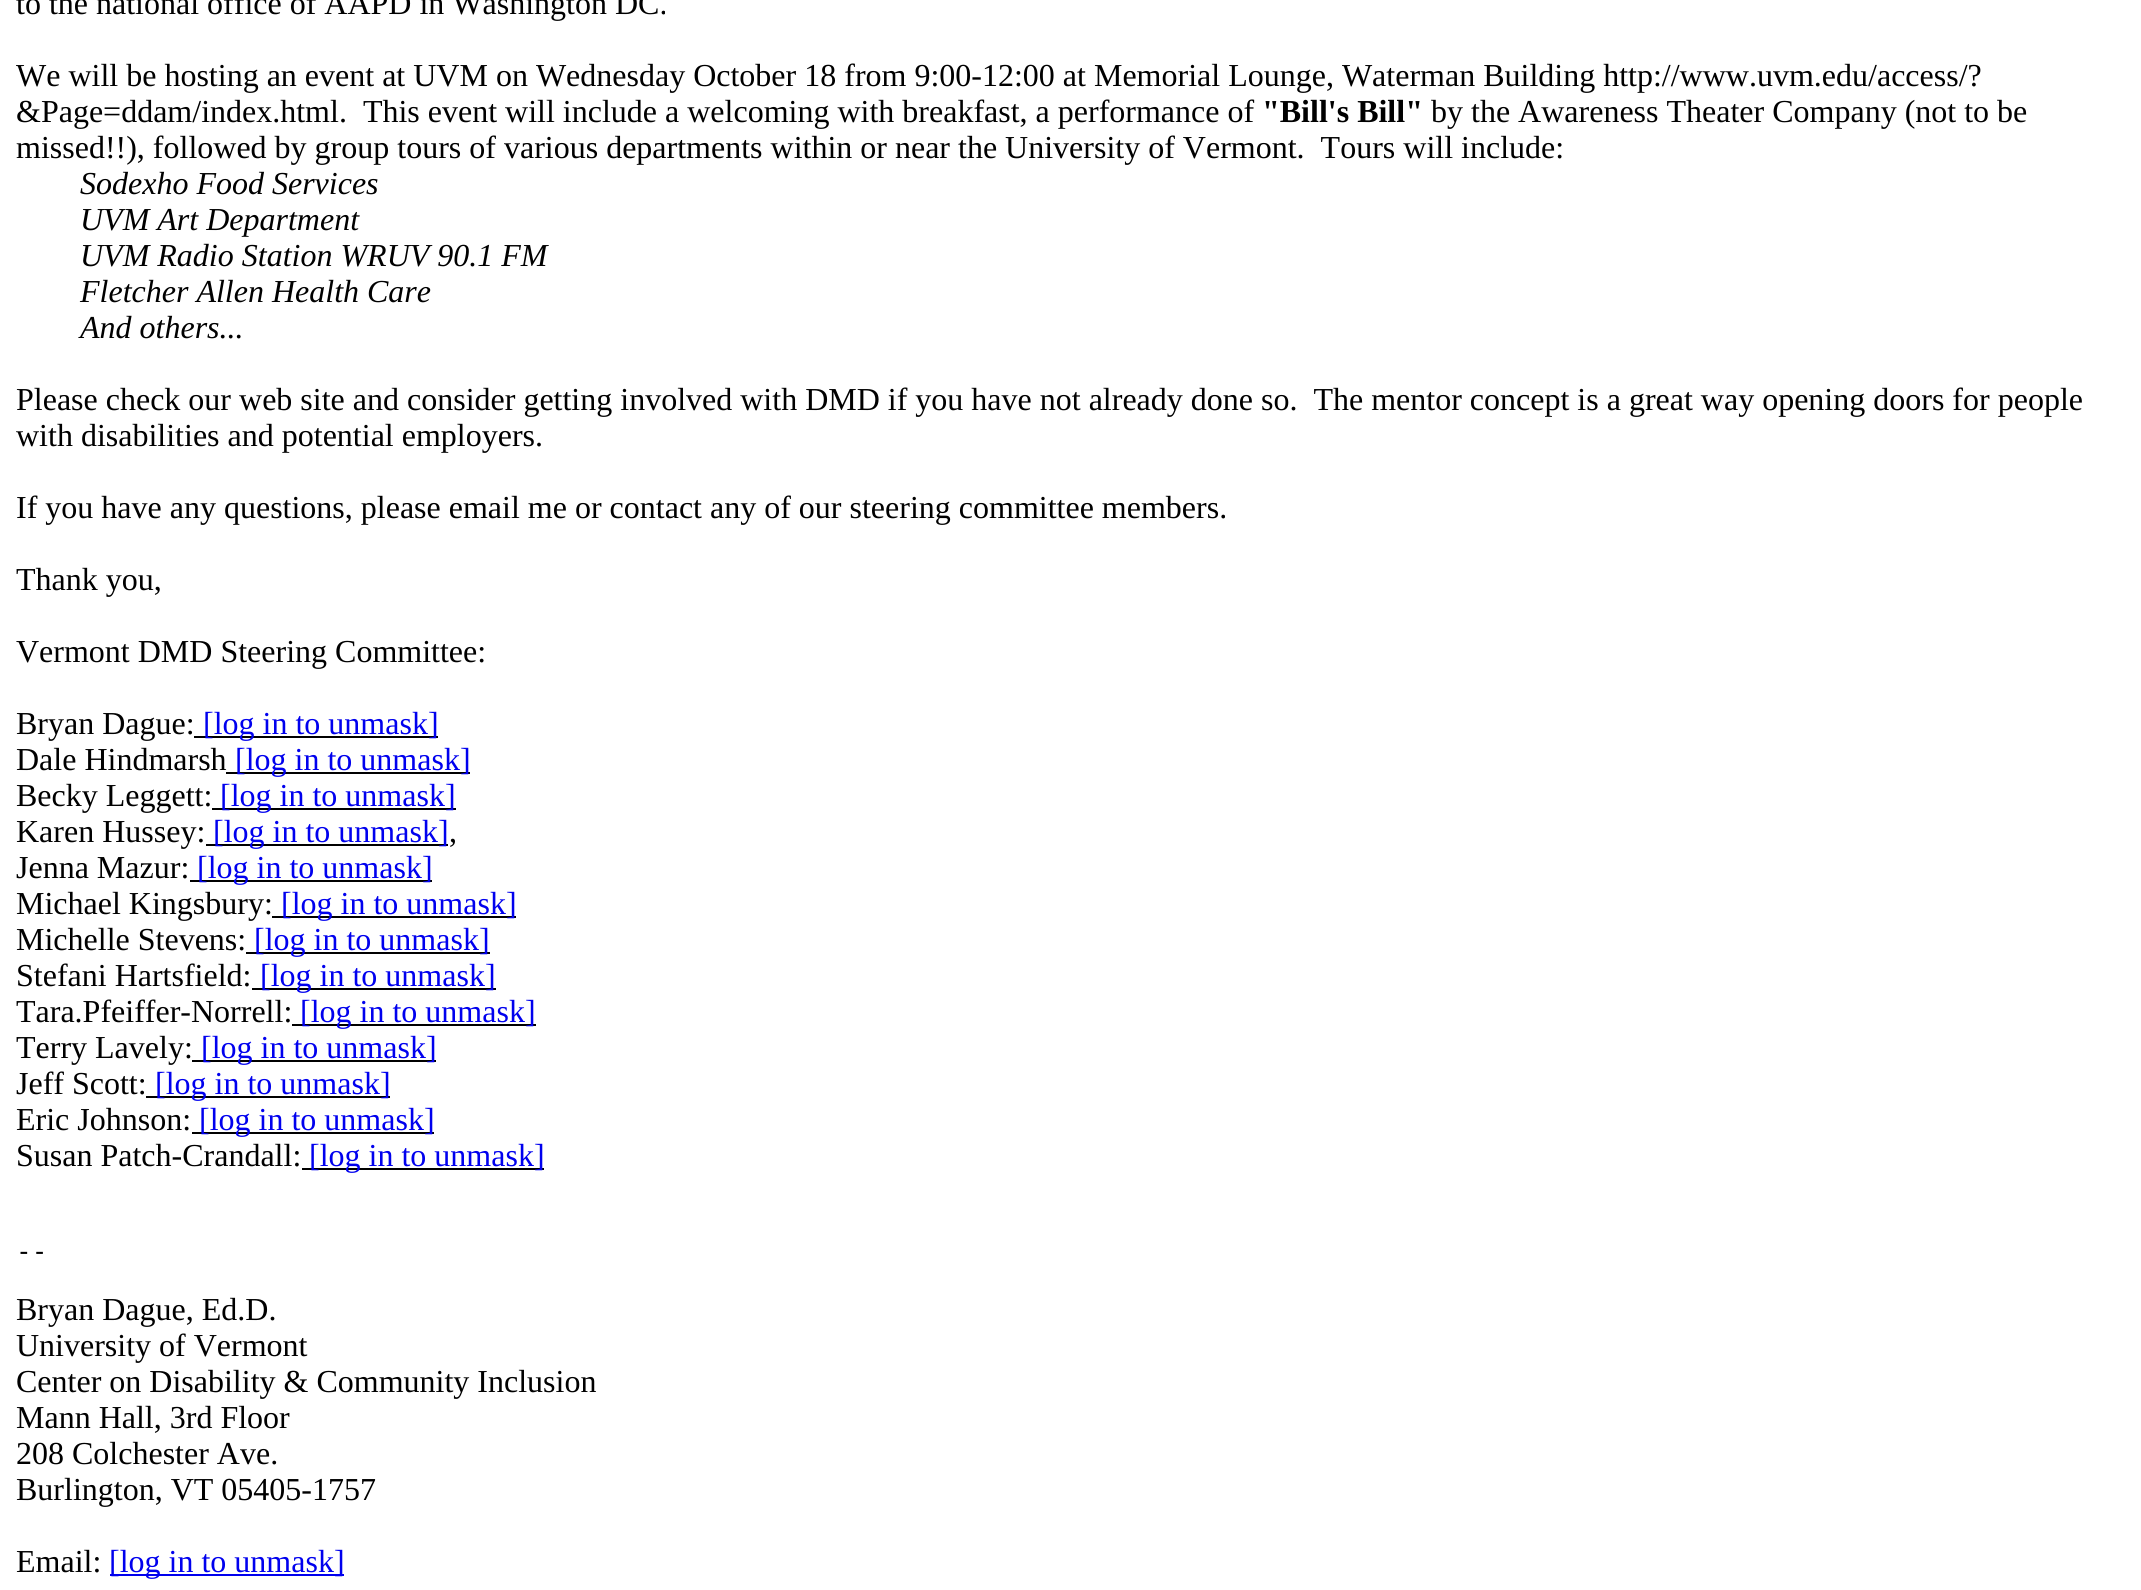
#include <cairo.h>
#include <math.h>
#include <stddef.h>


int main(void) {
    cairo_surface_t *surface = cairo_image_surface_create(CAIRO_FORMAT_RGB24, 2141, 1590);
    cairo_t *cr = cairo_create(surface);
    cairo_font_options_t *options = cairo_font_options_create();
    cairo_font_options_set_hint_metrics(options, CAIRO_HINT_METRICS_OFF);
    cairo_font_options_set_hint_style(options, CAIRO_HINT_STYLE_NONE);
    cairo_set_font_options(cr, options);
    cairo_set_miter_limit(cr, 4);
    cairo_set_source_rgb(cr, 1, 1, 1);
    cairo_paint(cr);
    cairo_select_font_face(cr, "Liberation Serif", CAIRO_FONT_SLANT_NORMAL, CAIRO_FONT_WEIGHT_NORMAL);
    cairo_set_font_size(cr, 32);
    cairo_set_source_rgb(cr, 0, 0, 0);
    cairo_move_to(cr, 16, 14);
    cairo_show_text(cr, "to the national office of AAPD in Washington DC.");
    cairo_move_to(cr, 16, 86);
    cairo_show_text(cr, "We will be hosting an event at UVM on Wednesday October 18 from 9:00-12:00 at Memorial Lounge, Waterman Building http://www.uvm.edu/access/?");
    cairo_move_to(cr, 16, 122);
    cairo_show_text(cr, "&Page=ddam/index.html.  This event will include a welcoming with breakfast, a performance of");
    cairo_select_font_face(cr, "Liberation Serif", CAIRO_FONT_SLANT_NORMAL, CAIRO_FONT_WEIGHT_BOLD);
    cairo_move_to(cr, 1262, 122);
    cairo_show_text(cr, "\"Bill's Bill\"");
    cairo_select_font_face(cr, "Liberation Serif", CAIRO_FONT_SLANT_NORMAL, CAIRO_FONT_WEIGHT_NORMAL);
    cairo_move_to(cr, 1431, 122);
    cairo_show_text(cr, "by the Awareness Theater Company (not to be");
    cairo_move_to(cr, 16, 158);
    cairo_show_text(cr, "missed!!), followed by group tours of various departments within or near the University of Vermont.  Tours will include:");
    cairo_select_font_face(cr, "Liberation Serif", CAIRO_FONT_SLANT_ITALIC, CAIRO_FONT_WEIGHT_NORMAL);
    cairo_move_to(cr, 80, 194);
    cairo_show_text(cr, "Sodexho Food Services");
    cairo_move_to(cr, 80, 230);
    cairo_show_text(cr, "UVM Art Department");
    cairo_move_to(cr, 80, 266);
    cairo_show_text(cr, "UVM Radio Station WRUV 90.1 FM");
    cairo_move_to(cr, 80, 302);
    cairo_show_text(cr, "Fletcher Allen Health Care");
    cairo_move_to(cr, 80, 338);
    cairo_show_text(cr, "And others...");
    cairo_select_font_face(cr, "Liberation Serif", CAIRO_FONT_SLANT_NORMAL, CAIRO_FONT_WEIGHT_NORMAL);
    cairo_move_to(cr, 16, 410);
    cairo_show_text(cr, "Please check our web site and consider getting involved with DMD if you have not already done so.  The mentor concept is a great way opening doors for people");
    cairo_move_to(cr, 16, 446);
    cairo_show_text(cr, "with disabilities and potential employers.");
    cairo_move_to(cr, 16, 518);
    cairo_show_text(cr, "If you have any questions, please email me or contact any of our steering committee members.");
    cairo_move_to(cr, 16, 590);
    cairo_show_text(cr, "Thank you,");
    cairo_move_to(cr, 16, 662);
    cairo_show_text(cr, "Vermont DMD Steering Committee:");
    cairo_move_to(cr, 16, 734);
    cairo_show_text(cr, "Bryan Dague:");
    cairo_rectangle(cr, 194, 736, 244, 2);
    cairo_fill(cr);
    cairo_set_source_rgb(cr, 0, 0, 0.933);
    cairo_move_to(cr, 203, 734);
    cairo_show_text(cr, "[log in to unmask]");
    cairo_set_source_rgb(cr, 0, 0, 0);
    cairo_move_to(cr, 16, 770);
    cairo_show_text(cr, "Dale Hindmarsh");
    cairo_rectangle(cr, 226, 772, 244, 2);
    cairo_fill(cr);
    cairo_set_source_rgb(cr, 0, 0, 0.933);
    cairo_move_to(cr, 235, 770);
    cairo_show_text(cr, "[log in to unmask]");
    cairo_set_source_rgb(cr, 0, 0, 0);
    cairo_move_to(cr, 16, 806);
    cairo_show_text(cr, "Becky Leggett:");
    cairo_rectangle(cr, 212, 808, 244, 2);
    cairo_fill(cr);
    cairo_set_source_rgb(cr, 0, 0, 0.933);
    cairo_move_to(cr, 220, 806);
    cairo_show_text(cr, "[log in to unmask]");
    cairo_set_source_rgb(cr, 0, 0, 0);
    cairo_move_to(cr, 16, 842);
    cairo_show_text(cr, "Karen Hussey:");
    cairo_rectangle(cr, 206, 844, 242, 2);
    cairo_fill(cr);
    cairo_set_source_rgb(cr, 0, 0, 0.933);
    cairo_move_to(cr, 213, 842);
    cairo_show_text(cr, "[log in to unmask]");
    cairo_set_source_rgb(cr, 0, 0, 0);
    cairo_move_to(cr, 449, 842);
    cairo_show_text(cr, ",");
    cairo_move_to(cr, 16, 878);
    cairo_show_text(cr, "Jenna Mazur:");
    cairo_rectangle(cr, 190, 880, 242, 2);
    cairo_fill(cr);
    cairo_set_source_rgb(cr, 0, 0, 0.933);
    cairo_move_to(cr, 197, 878);
    cairo_show_text(cr, "[log in to unmask]");
    cairo_set_source_rgb(cr, 0, 0, 0);
    cairo_move_to(cr, 16, 914);
    cairo_show_text(cr, "Michael Kingsbury:");
    cairo_rectangle(cr, 272, 916, 244, 2);
    cairo_fill(cr);
    cairo_set_source_rgb(cr, 0, 0, 0.933);
    cairo_move_to(cr, 281, 914);
    cairo_show_text(cr, "[log in to unmask]");
    cairo_set_source_rgb(cr, 0, 0, 0);
    cairo_move_to(cr, 16, 950);
    cairo_show_text(cr, "Michelle Stevens:");
    cairo_rectangle(cr, 246, 952, 244, 2);
    cairo_fill(cr);
    cairo_set_source_rgb(cr, 0, 0, 0.933);
    cairo_move_to(cr, 254, 950);
    cairo_show_text(cr, "[log in to unmask]");
    cairo_set_source_rgb(cr, 0, 0, 0);
    cairo_move_to(cr, 16, 986);
    cairo_show_text(cr, "Stefani Hartsfield:");
    cairo_rectangle(cr, 252, 988, 244, 2);
    cairo_fill(cr);
    cairo_set_source_rgb(cr, 0, 0, 0.933);
    cairo_move_to(cr, 260, 986);
    cairo_show_text(cr, "[log in to unmask]");
    cairo_set_source_rgb(cr, 0, 0, 0);
    cairo_move_to(cr, 16, 1022);
    cairo_show_text(cr, "Tara.Pfeiffer-Norrell:");
    cairo_rectangle(cr, 292, 1024, 244, 2);
    cairo_fill(cr);
    cairo_set_source_rgb(cr, 0, 0, 0.933);
    cairo_move_to(cr, 300, 1022);
    cairo_show_text(cr, "[log in to unmask]");
    cairo_set_source_rgb(cr, 0, 0, 0);
    cairo_move_to(cr, 16, 1058);
    cairo_show_text(cr, "Terry Lavely:");
    cairo_rectangle(cr, 192, 1060, 244, 2);
    cairo_fill(cr);
    cairo_set_source_rgb(cr, 0, 0, 0.933);
    cairo_move_to(cr, 201, 1058);
    cairo_show_text(cr, "[log in to unmask]");
    cairo_set_source_rgb(cr, 0, 0, 0);
    cairo_move_to(cr, 16, 1094);
    cairo_show_text(cr, "Jeff Scott:");
    cairo_rectangle(cr, 146, 1096, 244, 2);
    cairo_fill(cr);
    cairo_set_source_rgb(cr, 0, 0, 0.933);
    cairo_move_to(cr, 155, 1094);
    cairo_show_text(cr, "[log in to unmask]");
    cairo_set_source_rgb(cr, 0, 0, 0);
    cairo_move_to(cr, 16, 1130);
    cairo_show_text(cr, "Eric Johnson:");
    cairo_rectangle(cr, 192, 1132, 242, 2);
    cairo_fill(cr);
    cairo_set_source_rgb(cr, 0, 0, 0.933);
    cairo_move_to(cr, 199, 1130);
    cairo_show_text(cr, "[log in to unmask]");
    cairo_set_source_rgb(cr, 0, 0, 0);
    cairo_move_to(cr, 16, 1166);
    cairo_show_text(cr, "Susan Patch-Crandall:");
    cairo_rectangle(cr, 302, 1168, 242, 2);
    cairo_fill(cr);
    cairo_set_source_rgb(cr, 0, 0, 0.933);
    cairo_move_to(cr, 309, 1166);
    cairo_show_text(cr, "[log in to unmask]");
    cairo_select_font_face(cr, "DejaVu Sans Mono", CAIRO_FONT_SLANT_NORMAL, CAIRO_FONT_WEIGHT_NORMAL);
    cairo_set_font_size(cr, 26);
    cairo_set_source_rgb(cr, 0, 0, 0);
    cairo_move_to(cr, 16, 1260);
    cairo_show_text(cr, "--");
    cairo_select_font_face(cr, "Liberation Serif", CAIRO_FONT_SLANT_NORMAL, CAIRO_FONT_WEIGHT_NORMAL);
    cairo_set_font_size(cr, 32);
    cairo_move_to(cr, 16, 1320);
    cairo_show_text(cr, "Bryan Dague, Ed.D.");
    cairo_move_to(cr, 16, 1356);
    cairo_show_text(cr, "University of Vermont");
    cairo_move_to(cr, 16, 1392);
    cairo_show_text(cr, "Center on Disability & Community Inclusion");
    cairo_move_to(cr, 16, 1428);
    cairo_show_text(cr, "Mann Hall, 3rd Floor");
    cairo_move_to(cr, 16, 1464);
    cairo_show_text(cr, "208 Colchester Ave.");
    cairo_move_to(cr, 16, 1500);
    cairo_show_text(cr, "Burlington, VT 05405-1757");
    cairo_move_to(cr, 16, 1572);
    cairo_show_text(cr, "Email:");
    cairo_set_source_rgb(cr, 0, 0, 0.933);
    cairo_rectangle(cr, 110, 1574, 234, 2);
    cairo_fill(cr);
    cairo_move_to(cr, 109, 1572);
    cairo_show_text(cr, "[log in to unmask]");
    cairo_surface_write_to_png(surface, "page.png");
    cairo_font_options_destroy(options);
    cairo_destroy(cr);
    cairo_surface_destroy(surface);
    return 0;
}
